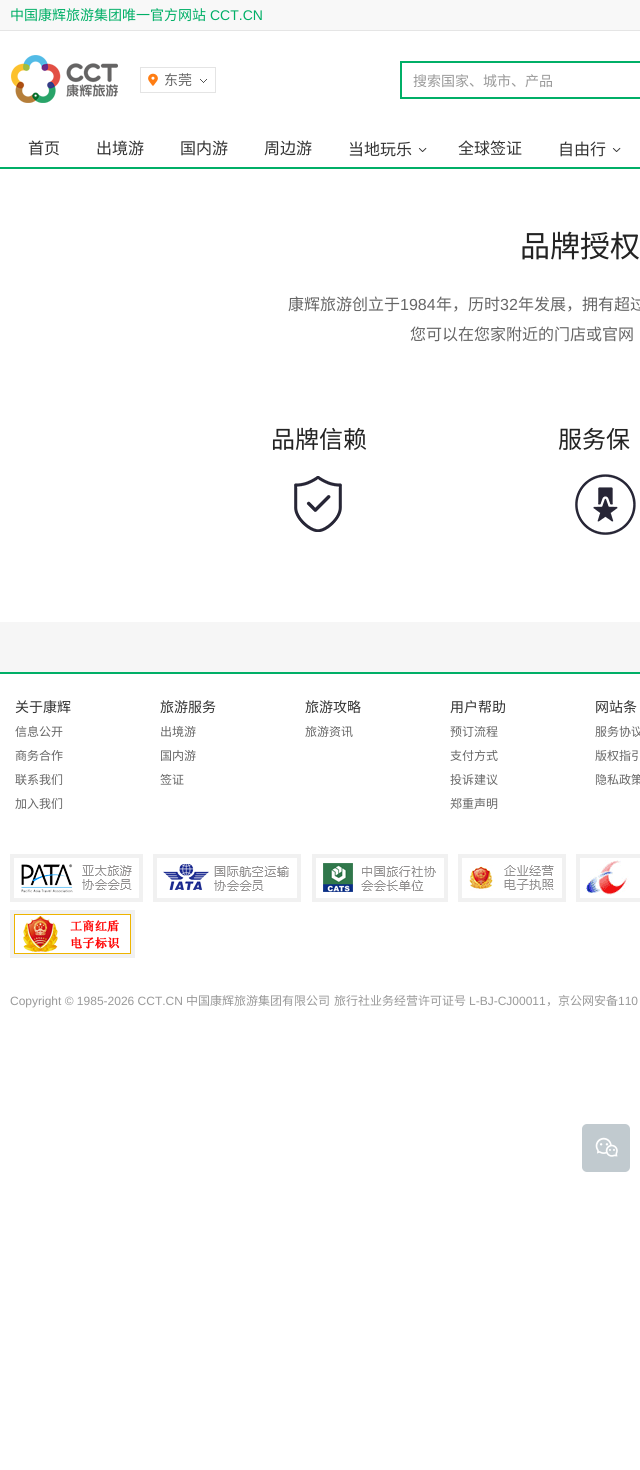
#include <cairo.h>
#include <math.h>
#include <stddef.h>


static void round_rect(cairo_t *cr, double x, double y, double w, double h, double r) {
    cairo_new_sub_path(cr);
    cairo_arc(cr, x + w - r, y + h - r, r, 0, M_PI / 2);
    cairo_arc(cr, x + r, y + h - r, r, M_PI / 2, M_PI);
    cairo_arc(cr, x + r, y + r, r, M_PI, 1.5 * M_PI);
    cairo_arc(cr, x + w - r, y + r, r, 1.5 * M_PI, 2 * M_PI);
    cairo_close_path(cr);
}

static void picture(cairo_t *cr, const char *path, double x, double y, double w, double h) {
    cairo_surface_t *image = cairo_image_surface_create_from_png(path);
    cairo_save(cr);
    cairo_set_source_surface(cr, image, x, y);
    cairo_rectangle(cr, x, y, w, h);
    cairo_fill(cr);
    cairo_restore(cr);
    cairo_surface_destroy(image);
}

int main(void) {
    cairo_surface_t *surface = cairo_image_surface_create(CAIRO_FORMAT_RGB24, 640, 1470);
    cairo_t *cr = cairo_create(surface);
    cairo_font_options_t *options = cairo_font_options_create();
    cairo_font_options_set_hint_metrics(options, CAIRO_HINT_METRICS_OFF);
    cairo_font_options_set_hint_style(options, CAIRO_HINT_STYLE_NONE);
    cairo_set_font_options(cr, options);
    cairo_set_miter_limit(cr, 4);
    cairo_set_source_rgb(cr, 1, 1, 1);
    cairo_paint(cr);
    cairo_set_source_rgb(cr, 0.969, 0.969, 0.969);
    cairo_rectangle(cr, 0, 0, 640, 30);
    cairo_fill(cr);
    cairo_set_source_rgb(cr, 0.898, 0.898, 0.898);
    cairo_rectangle(cr, 0, 30, 640, 1);
    cairo_fill(cr);
    cairo_select_font_face(cr, "Noto Sans CJK SC", CAIRO_FONT_SLANT_NORMAL, CAIRO_FONT_WEIGHT_NORMAL);
    cairo_set_font_size(cr, 14);
    cairo_set_source_rgb(cr, 0, 0.686, 0.4);
    cairo_move_to(cr, 10, 20);
    cairo_show_text(cr, "中国康辉旅游集团唯一官方网站");
    cairo_select_font_face(cr, "Liberation Sans", CAIRO_FONT_SLANT_NORMAL, CAIRO_FONT_WEIGHT_NORMAL);
    cairo_move_to(cr, 210, 20);
    cairo_show_text(cr, "CCT.CN");
    picture(cr, "img1.png", 11, 55, 107, 48);
    cairo_rectangle(cr, 140.5, 67.5, 75, 25);
    cairo_set_source_rgb(cr, 0.894, 0.894, 0.894);
    cairo_set_line_width(cr, 1);
    cairo_stroke(cr);
    picture(cr, "img2.png", 148, 73, 10, 13);
    cairo_select_font_face(cr, "Noto Sans CJK SC", CAIRO_FONT_SLANT_NORMAL, CAIRO_FONT_WEIGHT_NORMAL);
    cairo_set_source_rgb(cr, 0.4, 0.4, 0.4);
    cairo_move_to(cr, 164, 85);
    cairo_show_text(cr, "东莞");
    picture(cr, "img3.png", 200, 79, 7, 4);
    cairo_set_source_rgb(cr, 0, 0.686, 0.404);
    cairo_rectangle(cr, 400, 61, 240, 38);
    cairo_fill(cr);
    cairo_set_source_rgb(cr, 1, 1, 1);
    cairo_rectangle(cr, 402, 63, 238, 34);
    cairo_fill(cr);
    cairo_set_source_rgb(cr, 0.6, 0.6, 0.6);
    cairo_move_to(cr, 413, 86);
    cairo_show_text(cr, "搜索国家、城市、产品");
    cairo_set_font_size(cr, 16);
    cairo_set_source_rgb(cr, 0.2, 0.2, 0.2);
    cairo_move_to(cr, 28, 154);
    cairo_show_text(cr, "首页");
    cairo_move_to(cr, 96, 154);
    cairo_show_text(cr, "出境游");
    cairo_move_to(cr, 180, 154);
    cairo_show_text(cr, "国内游");
    cairo_move_to(cr, 264, 154);
    cairo_show_text(cr, "周边游");
    cairo_move_to(cr, 348, 155);
    cairo_show_text(cr, "当地玩乐");
    picture(cr, "img4.png", 418, 147, 9, 5);
    cairo_move_to(cr, 458, 154);
    cairo_show_text(cr, "全球签证");
    cairo_move_to(cr, 558, 155);
    cairo_show_text(cr, "自由行");
    picture(cr, "img4.png", 612, 147, 9, 5);
    cairo_set_source_rgb(cr, 0, 0.686, 0.404);
    cairo_rectangle(cr, 0, 167, 640, 2);
    cairo_fill(cr);
    cairo_set_source_rgb(cr, 0.961, 0.961, 0.961);
    cairo_rectangle(cr, 0, 622, 640, 50);
    cairo_fill(cr);
    cairo_set_font_size(cr, 30);
    cairo_set_source_rgb(cr, 0.137, 0.137, 0.137);
    cairo_move_to(cr, 520, 257);
    cairo_show_text(cr, "品牌授权");
    cairo_set_font_size(cr, 16);
    cairo_set_source_rgb(cr, 0.4, 0.4, 0.4);
    cairo_move_to(cr, 288, 310);
    cairo_show_text(cr, "康辉旅游创立于");
    cairo_select_font_face(cr, "Liberation Sans", CAIRO_FONT_SLANT_NORMAL, CAIRO_FONT_WEIGHT_NORMAL);
    cairo_move_to(cr, 400, 310);
    cairo_show_text(cr, "1984");
    cairo_select_font_face(cr, "Noto Sans CJK SC", CAIRO_FONT_SLANT_NORMAL, CAIRO_FONT_WEIGHT_NORMAL);
    cairo_move_to(cr, 436, 310);
    cairo_show_text(cr, "年，历时");
    cairo_select_font_face(cr, "Liberation Sans", CAIRO_FONT_SLANT_NORMAL, CAIRO_FONT_WEIGHT_NORMAL);
    cairo_move_to(cr, 500, 310);
    cairo_show_text(cr, "32");
    cairo_select_font_face(cr, "Noto Sans CJK SC", CAIRO_FONT_SLANT_NORMAL, CAIRO_FONT_WEIGHT_NORMAL);
    cairo_move_to(cr, 518, 310);
    cairo_show_text(cr, "年发展，拥有超过");
    cairo_move_to(cr, 410, 340);
    cairo_show_text(cr, "您可以在您家附近的门店或官网");
    cairo_set_font_size(cr, 24);
    cairo_set_source_rgb(cr, 0.137, 0.137, 0.137);
    cairo_move_to(cr, 271, 448);
    cairo_show_text(cr, "品牌信赖");
    picture(cr, "img5.png", 294, 476, 48, 56);
    cairo_move_to(cr, 558, 448);
    cairo_show_text(cr, "服务保");
    picture(cr, "img6.png", 575, 474, 61, 61);
    cairo_set_source_rgb(cr, 0, 0.686, 0.404);
    cairo_rectangle(cr, 0, 672, 640, 2);
    cairo_fill(cr);
    cairo_set_font_size(cr, 14);
    cairo_set_source_rgb(cr, 0.2, 0.2, 0.2);
    cairo_move_to(cr, 15, 712);
    cairo_show_text(cr, "关于康辉");
    cairo_set_font_size(cr, 12);
    cairo_set_source_rgb(cr, 0.4, 0.4, 0.4);
    cairo_move_to(cr, 15, 736);
    cairo_show_text(cr, "信息公开");
    cairo_move_to(cr, 15, 760);
    cairo_show_text(cr, "商务合作");
    cairo_move_to(cr, 15, 784);
    cairo_show_text(cr, "联系我们");
    cairo_move_to(cr, 15, 808);
    cairo_show_text(cr, "加入我们");
    cairo_set_font_size(cr, 14);
    cairo_set_source_rgb(cr, 0.2, 0.2, 0.2);
    cairo_move_to(cr, 160, 712);
    cairo_show_text(cr, "旅游服务");
    cairo_set_font_size(cr, 12);
    cairo_set_source_rgb(cr, 0.4, 0.4, 0.4);
    cairo_move_to(cr, 160, 736);
    cairo_show_text(cr, "出境游");
    cairo_move_to(cr, 160, 760);
    cairo_show_text(cr, "国内游");
    cairo_move_to(cr, 160, 784);
    cairo_show_text(cr, "签证");
    cairo_set_font_size(cr, 14);
    cairo_set_source_rgb(cr, 0.2, 0.2, 0.2);
    cairo_move_to(cr, 305, 712);
    cairo_show_text(cr, "旅游攻略");
    cairo_set_font_size(cr, 12);
    cairo_set_source_rgb(cr, 0.4, 0.4, 0.4);
    cairo_move_to(cr, 305, 736);
    cairo_show_text(cr, "旅游资讯");
    cairo_set_font_size(cr, 14);
    cairo_set_source_rgb(cr, 0.2, 0.2, 0.2);
    cairo_move_to(cr, 450, 712);
    cairo_show_text(cr, "用户帮助");
    cairo_set_font_size(cr, 12);
    cairo_set_source_rgb(cr, 0.4, 0.4, 0.4);
    cairo_move_to(cr, 450, 736);
    cairo_show_text(cr, "预订流程");
    cairo_move_to(cr, 450, 760);
    cairo_show_text(cr, "支付方式");
    cairo_move_to(cr, 450, 784);
    cairo_show_text(cr, "投诉建议");
    cairo_move_to(cr, 450, 808);
    cairo_show_text(cr, "郑重声明");
    cairo_set_font_size(cr, 14);
    cairo_set_source_rgb(cr, 0.2, 0.2, 0.2);
    cairo_move_to(cr, 595, 712);
    cairo_show_text(cr, "网站条");
    cairo_set_font_size(cr, 12);
    cairo_set_source_rgb(cr, 0.4, 0.4, 0.4);
    cairo_move_to(cr, 595, 736);
    cairo_show_text(cr, "服务协议");
    cairo_move_to(cr, 595, 760);
    cairo_show_text(cr, "版权指引");
    cairo_move_to(cr, 595, 784);
    cairo_show_text(cr, "隐私政策");
    picture(cr, "img7.png", 14, 858, 118, 35);
    cairo_rectangle(cr, 12, 856, 129, 44);
    cairo_set_source_rgb(cr, 0.945, 0.945, 0.945);
    cairo_set_line_width(cr, 4);
    cairo_stroke(cr);
    picture(cr, "img8.png", 163, 864, 126, 27);
    cairo_rectangle(cr, 155, 856, 144, 44);
    cairo_stroke(cr);
    picture(cr, "img9.png", 323, 863, 113, 29);
    cairo_rectangle(cr, 314, 856, 132, 44);
    cairo_stroke(cr);
    picture(cr, "img10.png", 469, 865, 85, 33);
    cairo_rectangle(cr, 460, 856, 104, 44);
    cairo_stroke(cr);
    picture(cr, "img11.png", 585, 860, 44, 35);
    cairo_rectangle(cr, 578, 856, 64, 44);
    cairo_stroke(cr);
    picture(cr, "img12.png", 14, 914, 117, 40);
    cairo_rectangle(cr, 12, 912, 121, 44);
    cairo_stroke(cr);
    cairo_select_font_face(cr, "Liberation Sans", CAIRO_FONT_SLANT_NORMAL, CAIRO_FONT_WEIGHT_NORMAL);
    cairo_set_source_rgb(cr, 0.6, 0.6, 0.6);
    cairo_move_to(cr, 10, 1005);
    cairo_show_text(cr, "Copyright © 1985-2026 CCT.CN");
    cairo_select_font_face(cr, "Noto Sans CJK SC", CAIRO_FONT_SLANT_NORMAL, CAIRO_FONT_WEIGHT_NORMAL);
    cairo_move_to(cr, 186, 1005);
    cairo_show_text(cr, "中国康辉旅游集团有限公司");
    cairo_move_to(cr, 334, 1005);
    cairo_show_text(cr, "旅行社业务经营许可证号");
    cairo_select_font_face(cr, "Liberation Sans", CAIRO_FONT_SLANT_NORMAL, CAIRO_FONT_WEIGHT_NORMAL);
    cairo_move_to(cr, 469, 1005);
    cairo_show_text(cr, "L-BJ-CJ00011");
    cairo_select_font_face(cr, "Noto Sans CJK SC", CAIRO_FONT_SLANT_NORMAL, CAIRO_FONT_WEIGHT_NORMAL);
    cairo_move_to(cr, 546, 1005);
    cairo_show_text(cr, "，京公网安备");
    cairo_select_font_face(cr, "Liberation Sans", CAIRO_FONT_SLANT_NORMAL, CAIRO_FONT_WEIGHT_NORMAL);
    cairo_move_to(cr, 618, 1005);
    cairo_show_text(cr, "110");
    cairo_set_source_rgb(cr, 0.757, 0.792, 0.812);
    round_rect(cr, 582, 1124, 48, 48, 5);
    cairo_fill(cr);
    picture(cr, "img13.png", 595, 1137, 23, 20);
    cairo_surface_write_to_png(surface, "page.png");
    cairo_font_options_destroy(options);
    cairo_destroy(cr);
    cairo_surface_destroy(surface);
    return 0;
}
